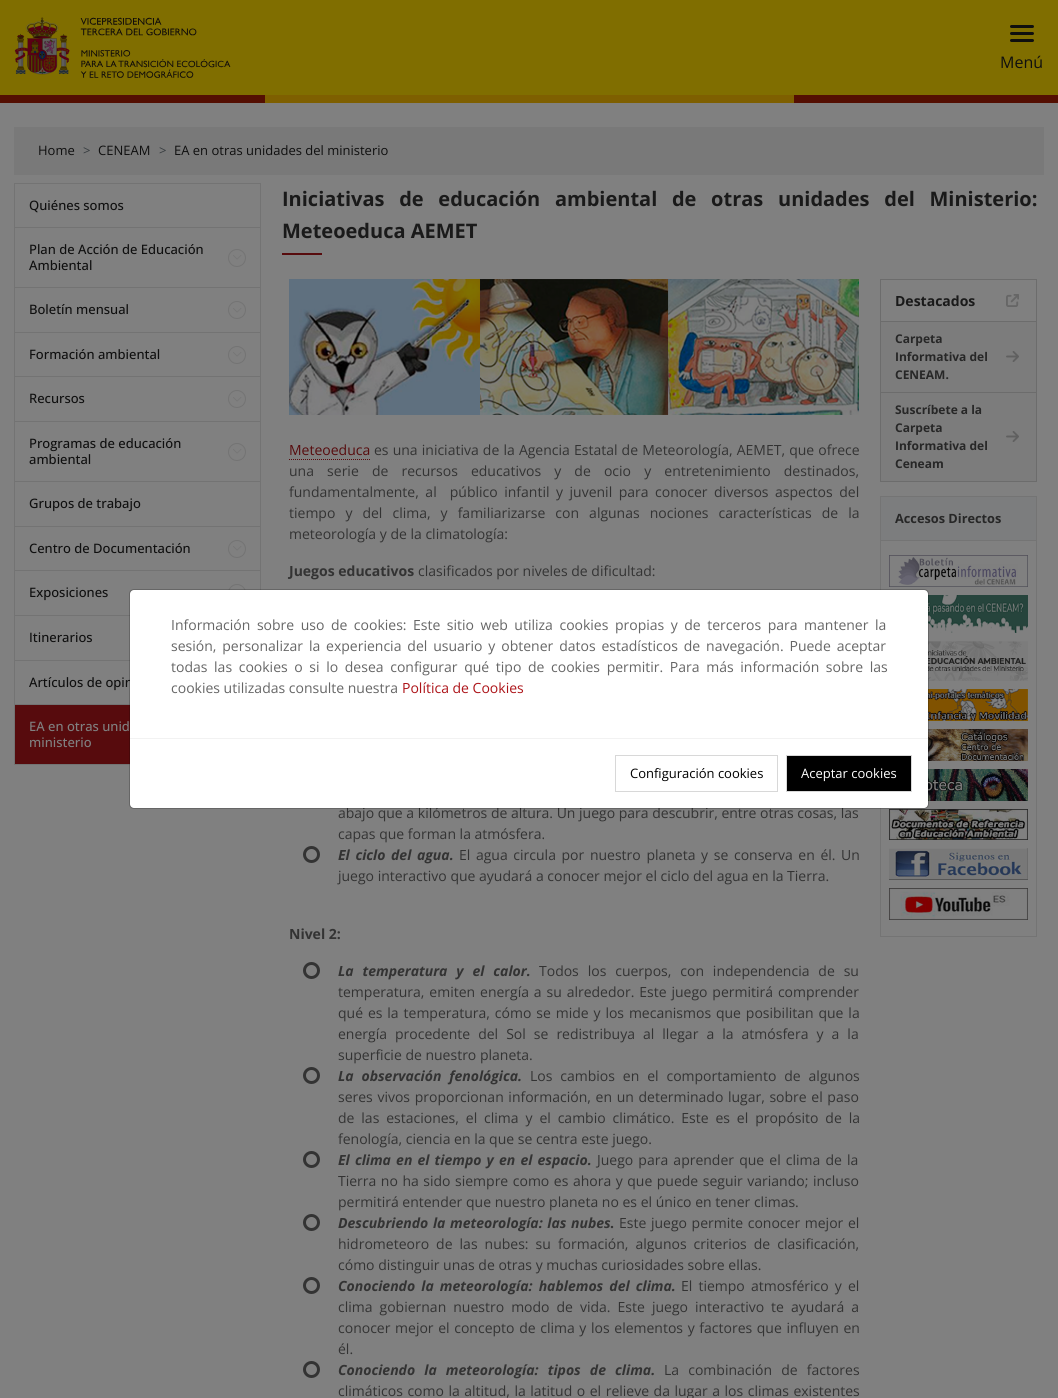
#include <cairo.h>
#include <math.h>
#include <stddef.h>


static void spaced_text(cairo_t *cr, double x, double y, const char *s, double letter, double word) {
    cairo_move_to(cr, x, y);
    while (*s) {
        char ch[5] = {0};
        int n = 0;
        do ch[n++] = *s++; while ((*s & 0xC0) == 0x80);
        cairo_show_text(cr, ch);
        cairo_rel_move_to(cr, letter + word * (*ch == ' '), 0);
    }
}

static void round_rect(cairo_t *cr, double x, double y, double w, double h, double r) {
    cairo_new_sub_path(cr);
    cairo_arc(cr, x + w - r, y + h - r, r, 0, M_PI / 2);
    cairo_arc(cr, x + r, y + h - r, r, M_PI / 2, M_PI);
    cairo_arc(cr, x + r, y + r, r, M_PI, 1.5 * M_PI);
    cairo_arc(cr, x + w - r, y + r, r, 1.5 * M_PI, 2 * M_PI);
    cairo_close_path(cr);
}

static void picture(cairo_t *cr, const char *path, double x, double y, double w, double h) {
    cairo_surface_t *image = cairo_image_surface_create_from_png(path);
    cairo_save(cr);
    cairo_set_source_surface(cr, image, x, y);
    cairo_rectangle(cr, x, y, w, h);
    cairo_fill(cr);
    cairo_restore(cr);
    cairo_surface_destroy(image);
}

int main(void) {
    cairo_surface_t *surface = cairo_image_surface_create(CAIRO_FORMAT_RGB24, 1058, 1398);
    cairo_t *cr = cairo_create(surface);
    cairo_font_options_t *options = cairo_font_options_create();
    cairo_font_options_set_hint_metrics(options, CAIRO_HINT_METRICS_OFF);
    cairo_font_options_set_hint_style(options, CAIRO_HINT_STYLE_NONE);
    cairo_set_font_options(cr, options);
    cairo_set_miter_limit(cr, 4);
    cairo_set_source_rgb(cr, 0.502, 0.502, 0.502);
    cairo_paint(cr);
    cairo_set_source_rgb(cr, 0.502, 0.431, 0);
    cairo_rectangle(cr, 0, 0, 1058, 95);
    cairo_fill(cr);
    cairo_set_source_rgb(cr, 0.494, 0.373, 0);
    cairo_rectangle(cr, 265, 95, 529, 8);
    cairo_fill(cr);
    picture(cr, "img1.png", 14, 17, 217, 61);
    cairo_set_source_rgb(cr, 0.059, 0.059, 0.055);
    round_rect(cr, 1010, 25, 24, 3, 1.5);
    cairo_fill(cr);
    round_rect(cr, 1010, 32, 24, 3, 1.5);
    cairo_fill(cr);
    round_rect(cr, 1010, 39, 24, 3, 1.5);
    cairo_fill(cr);
    cairo_select_font_face(cr, "Open Sans", CAIRO_FONT_SLANT_NORMAL, CAIRO_FONT_WEIGHT_NORMAL);
    cairo_set_font_size(cr, 16);
    cairo_set_source_rgb(cr, 0.059, 0.059, 0.059);
    cairo_move_to(cr, 1000, 68);
    cairo_show_text(cr, "Menú");
    cairo_set_source_rgb(cr, 0.329, 0.059, 0.008);
    cairo_rectangle(cr, 0, 95, 265, 8);
    cairo_fill(cr);
    cairo_rectangle(cr, 794, 95, 264, 8);
    cairo_fill(cr);
    cairo_set_source_rgb(cr, 0.475, 0.475, 0.475);
    cairo_rectangle(cr, 14, 127, 1030, 48);
    cairo_fill(cr);
    cairo_set_font_size(cr, 13);
    cairo_set_source_rgb(cr, 0.059, 0.059, 0.059);
    cairo_move_to(cr, 38, 155);
    cairo_show_text(cr, "Home");
    cairo_set_source_rgb(cr, 0.212, 0.231, 0.247);
    cairo_move_to(cr, 83, 155);
    cairo_show_text(cr, ">");
    cairo_set_source_rgb(cr, 0.059, 0.059, 0.059);
    cairo_move_to(cr, 98, 155);
    cairo_show_text(cr, "CENEAM");
    cairo_set_source_rgb(cr, 0.212, 0.231, 0.247);
    cairo_move_to(cr, 159, 155);
    cairo_show_text(cr, ">");
    cairo_set_source_rgb(cr, 0.059, 0.059, 0.059);
    cairo_move_to(cr, 174, 155);
    cairo_show_text(cr, "EA en otras unidades del ministerio");
    cairo_rectangle(cr, 14.5, 183.5, 246, 581);
    cairo_set_source_rgb(cr, 0.451, 0.451, 0.451);
    cairo_set_line_width(cr, 1);
    cairo_stroke(cr);
    cairo_rectangle(cr, 15, 227, 245, 1);
    cairo_fill(cr);
    cairo_select_font_face(cr, "Open Sans Medium", CAIRO_FONT_SLANT_NORMAL, CAIRO_FONT_WEIGHT_NORMAL);
    cairo_set_source_rgb(cr, 0.059, 0.059, 0.059);
    cairo_move_to(cr, 29, 210);
    cairo_show_text(cr, "Quiénes somos");
    cairo_set_source_rgb(cr, 0.451, 0.451, 0.451);
    cairo_rectangle(cr, 15, 287, 245, 1);
    cairo_fill(cr);
    cairo_set_source_rgb(cr, 0.059, 0.059, 0.059);
    cairo_move_to(cr, 29, 254);
    cairo_show_text(cr, "Plan de Acción de Educación");
    cairo_move_to(cr, 29, 270);
    cairo_show_text(cr, "Ambiental");
    picture(cr, "img2.png", 233, 255, 9, 5);
    cairo_arc(cr, 237, 258, 8.5, 0, 2 * M_PI);
    cairo_set_source_rgb(cr, 0.451, 0.451, 0.451);
    cairo_stroke(cr);
    cairo_rectangle(cr, 15, 332, 245, 1);
    cairo_fill(cr);
    cairo_set_source_rgb(cr, 0.059, 0.059, 0.059);
    cairo_move_to(cr, 29, 314);
    cairo_show_text(cr, "Boletín mensual");
    picture(cr, "img2.png", 233, 308, 9, 5);
    cairo_arc(cr, 237, 310, 8.5, 0, 2 * M_PI);
    cairo_set_source_rgb(cr, 0.451, 0.451, 0.451);
    cairo_stroke(cr);
    cairo_rectangle(cr, 15, 376, 245, 1);
    cairo_fill(cr);
    cairo_set_source_rgb(cr, 0.059, 0.059, 0.059);
    cairo_move_to(cr, 29, 359);
    cairo_show_text(cr, "Formación ambiental");
    picture(cr, "img2.png", 233, 352, 9, 5);
    cairo_arc(cr, 237, 355, 8.5, 0, 2 * M_PI);
    cairo_set_source_rgb(cr, 0.451, 0.451, 0.451);
    cairo_stroke(cr);
    cairo_rectangle(cr, 15, 421, 245, 1);
    cairo_fill(cr);
    cairo_set_source_rgb(cr, 0.059, 0.059, 0.059);
    cairo_move_to(cr, 29, 403);
    cairo_show_text(cr, "Recursos");
    picture(cr, "img2.png", 233, 397, 9, 5);
    cairo_arc(cr, 237, 399, 8.5, 0, 2 * M_PI);
    cairo_set_source_rgb(cr, 0.451, 0.451, 0.451);
    cairo_stroke(cr);
    cairo_rectangle(cr, 15, 481, 245, 1);
    cairo_fill(cr);
    cairo_set_source_rgb(cr, 0.059, 0.059, 0.059);
    cairo_move_to(cr, 29, 448);
    cairo_show_text(cr, "Programas de educación");
    cairo_move_to(cr, 29, 464);
    cairo_show_text(cr, "ambiental");
    picture(cr, "img2.png", 233, 449, 9, 5);
    cairo_arc(cr, 237, 452, 8.5, 0, 2 * M_PI);
    cairo_set_source_rgb(cr, 0.451, 0.451, 0.451);
    cairo_stroke(cr);
    cairo_rectangle(cr, 15, 526, 245, 1);
    cairo_fill(cr);
    cairo_set_source_rgb(cr, 0.059, 0.059, 0.059);
    cairo_move_to(cr, 29, 508);
    cairo_show_text(cr, "Grupos de trabajo");
    cairo_set_source_rgb(cr, 0.451, 0.451, 0.451);
    cairo_rectangle(cr, 15, 570, 245, 1);
    cairo_fill(cr);
    cairo_set_source_rgb(cr, 0.059, 0.059, 0.059);
    cairo_move_to(cr, 29, 553);
    cairo_show_text(cr, "Centro de Documentación");
    picture(cr, "img2.png", 233, 546, 9, 5);
    cairo_arc(cr, 237, 549, 8.5, 0, 2 * M_PI);
    cairo_set_source_rgb(cr, 0.451, 0.451, 0.451);
    cairo_stroke(cr);
    cairo_rectangle(cr, 15, 615, 115, 1);
    cairo_fill(cr);
    cairo_set_source_rgb(cr, 0.059, 0.059, 0.059);
    cairo_move_to(cr, 29, 597);
    cairo_show_text(cr, "Exposiciones");
    cairo_new_path(cr);
    cairo_arc(cr, 237, 593, 8.5, 0, 2 * M_PI);
    cairo_set_source_rgb(cr, 0.451, 0.451, 0.451);
    cairo_stroke(cr);
    cairo_rectangle(cr, 15, 660, 115, 1);
    cairo_fill(cr);
    cairo_set_source_rgb(cr, 0.059, 0.059, 0.059);
    cairo_move_to(cr, 29, 642);
    cairo_show_text(cr, "Itinerarios");
    cairo_set_source_rgb(cr, 0.451, 0.451, 0.451);
    cairo_rectangle(cr, 15, 704, 115, 1);
    cairo_fill(cr);
    cairo_set_source_rgb(cr, 0.059, 0.059, 0.059);
    cairo_move_to(cr, 29, 687);
    cairo_show_text(cr, "Artículos de opin");
    cairo_set_source_rgb(cr, 0.341, 0.043, 0.051);
    cairo_rectangle(cr, 15, 705, 115, 59);
    cairo_fill(cr);
    cairo_set_source_rgb(cr, 0.502, 0.502, 0.502);
    cairo_move_to(cr, 29, 731);
    cairo_show_text(cr, "EA en otras unid");
    cairo_move_to(cr, 29, 747);
    cairo_show_text(cr, "ministerio");
    cairo_select_font_face(cr, "Open Sans", CAIRO_FONT_SLANT_NORMAL, CAIRO_FONT_WEIGHT_BOLD);
    cairo_set_font_size(cr, 20);
    cairo_set_source_rgb(cr, 0.102, 0.102, 0.102);
    spaced_text(cr, 282, 206, "Iniciativas de educación ambiental de otras unidades del Ministerio:", 0, 9.5);
    cairo_move_to(cr, 282, 238);
    cairo_show_text(cr, "Meteoeduca AEMET");
    cairo_set_source_rgb(cr, 0.341, 0.043, 0.051);
    cairo_rectangle(cr, 282, 253, 40, 2);
    cairo_fill(cr);
    cairo_set_source_rgb(cr, 0.486, 0.486, 0.486);
    cairo_rectangle(cr, 881, 322, 155, 159);
    cairo_fill(cr);
    cairo_set_source_rgb(cr, 0.424, 0.424, 0.424);
    cairo_rectangle(cr, 880, 279, 157, 1);
    cairo_fill(cr);
    cairo_rectangle(cr, 1036, 279, 1, 203);
    cairo_fill(cr);
    cairo_rectangle(cr, 880, 279, 1, 203);
    cairo_fill(cr);
    cairo_rectangle(cr, 881, 321, 155, 1);
    cairo_fill(cr);
    cairo_set_font_size(cr, 14);
    cairo_set_source_rgb(cr, 0.102, 0.102, 0.102);
    cairo_move_to(cr, 895, 306);
    cairo_show_text(cr, "Destacados");
    picture(cr, "img3.png", 1006, 294, 13, 13);
    cairo_set_source_rgb(cr, 0.424, 0.424, 0.424);
    cairo_rectangle(cr, 881, 392, 155, 1);
    cairo_fill(cr);
    cairo_set_font_size(cr, 12);
    cairo_set_source_rgb(cr, 0.153, 0.153, 0.153);
    cairo_move_to(cr, 895, 343);
    cairo_show_text(cr, "Carpeta");
    cairo_move_to(cr, 895, 361);
    cairo_show_text(cr, "Informativa del");
    picture(cr, "img4.png", 1006, 351, 13, 11);
    cairo_move_to(cr, 895, 379);
    cairo_show_text(cr, "CENEAM.");
    cairo_set_source_rgb(cr, 0.424, 0.424, 0.424);
    cairo_rectangle(cr, 881, 481, 155, 1);
    cairo_fill(cr);
    cairo_set_source_rgb(cr, 0.153, 0.153, 0.153);
    cairo_move_to(cr, 895, 414);
    cairo_show_text(cr, "Suscríbete a la");
    cairo_move_to(cr, 895, 432);
    cairo_show_text(cr, "Carpeta");
    picture(cr, "img4.png", 1006, 431, 13, 11);
    cairo_move_to(cr, 895, 450);
    cairo_show_text(cr, "Informativa del");
    cairo_move_to(cr, 895, 468);
    cairo_show_text(cr, "Ceneam");
    cairo_rectangle(cr, 880.5, 496.5, 156, 440);
    cairo_set_source_rgb(cr, 0.455, 0.455, 0.455);
    cairo_stroke(cr);
    cairo_set_source_rgb(cr, 0.486, 0.49, 0.494);
    cairo_rectangle(cr, 881, 497, 155, 43);
    cairo_fill(cr);
    cairo_set_source_rgb(cr, 0.455, 0.455, 0.455);
    cairo_rectangle(cr, 881, 540, 155, 1);
    cairo_fill(cr);
    cairo_set_font_size(cr, 12.75);
    cairo_set_source_rgb(cr, 0.153, 0.153, 0.153);
    cairo_move_to(cr, 895, 523);
    cairo_show_text(cr, "Accesos Directos");
    picture(cr, "img5.png", 889, 555, 139, 32);
    picture(cr, "img6.png", 928, 595, 100, 38);
    picture(cr, "img7.png", 928, 641, 100, 40);
    picture(cr, "img8.png", 928, 689, 100, 32);
    picture(cr, "img9.png", 928, 729, 100, 32);
    picture(cr, "img10.png", 928, 769, 100, 32);
    picture(cr, "img11.png", 889, 809, 139, 31);
    picture(cr, "img12.png", 889, 848, 139, 32);
    picture(cr, "img13.png", 889, 888, 139, 32);
    picture(cr, "img14.png", 289, 279, 570, 136);
    cairo_select_font_face(cr, "Open Sans", CAIRO_FONT_SLANT_NORMAL, CAIRO_FONT_WEIGHT_NORMAL);
    cairo_set_font_size(cr, 14);
    cairo_set_source_rgb(cr, 0.341, 0.043, 0.051);
    cairo_move_to(cr, 289, 455);
    cairo_show_text(cr, "Meteoeduca");
    cairo_new_path(cr);
    cairo_move_to(cr, 289, 459.5);
    cairo_line_to(cr, 370, 459.5);
    cairo_set_dash(cr, (double[]){1, 1}, 2, 0);
    cairo_stroke(cr);
    cairo_set_source_rgb(cr, 0.2, 0.2, 0.2);
    spaced_text(cr, 374, 455, "es una iniciativa de la Agencia Estatal de Meteorología, AEMET, que ofrece", 0, 0.5);
    spaced_text(cr, 289, 476, "una serie de recursos educativos y de ocio y entretenimiento destinados,", 0, 9.5);
    spaced_text(cr, 289, 497, "fundamentalmente, al  público infantil y juvenil para conocer diversos aspectos del", 0, 2.9);
    spaced_text(cr, 289, 518, "tiempo y del clima, y familiarizarse con algunas nociones características de la", 0, 6.4);
    cairo_move_to(cr, 289, 539);
    cairo_show_text(cr, "meteorología y de la climatología:");
    cairo_select_font_face(cr, "Open Sans", CAIRO_FONT_SLANT_NORMAL, CAIRO_FONT_WEIGHT_BOLD);
    cairo_move_to(cr, 289, 576);
    cairo_show_text(cr, "Juegos educativos");
    cairo_select_font_face(cr, "Open Sans", CAIRO_FONT_SLANT_NORMAL, CAIRO_FONT_WEIGHT_NORMAL);
    cairo_move_to(cr, 418, 576);
    cairo_show_text(cr, "clasificados por niveles de dificultad:");
    cairo_move_to(cr, 338, 818);
    cairo_show_text(cr, "abajo que a kilómetros de altura. Un juego para descubrir, entre otras cosas, las");
    cairo_move_to(cr, 338, 839);
    cairo_show_text(cr, "capas que forman la atmósfera.");
    cairo_new_path(cr);
    cairo_arc(cr, 311.5, 854.5, 7, 0, 2 * M_PI);
    cairo_set_line_width(cr, 3);
    cairo_set_dash(cr, NULL, 0, 0);
    cairo_stroke(cr);
    cairo_select_font_face(cr, "Open Sans", CAIRO_FONT_SLANT_ITALIC, CAIRO_FONT_WEIGHT_BOLD);
    spaced_text(cr, 338, 860, "El ciclo del agua.", 0, 2);
    cairo_select_font_face(cr, "Open Sans", CAIRO_FONT_SLANT_NORMAL, CAIRO_FONT_WEIGHT_NORMAL);
    spaced_text(cr, 459, 860, "El agua circula por nuestro planeta y se conserva en él. Un", 0, 2);
    cairo_move_to(cr, 338, 881);
    cairo_show_text(cr, "juego interactivo que ayudará a conocer mejor el ciclo del agua en la Tierra.");
    cairo_select_font_face(cr, "Open Sans", CAIRO_FONT_SLANT_NORMAL, CAIRO_FONT_WEIGHT_BOLD);
    cairo_move_to(cr, 289, 939);
    cairo_show_text(cr, "Nivel 2:");
    cairo_new_path(cr);
    cairo_arc(cr, 311.5, 970.5, 7, 0, 2 * M_PI);
    cairo_stroke(cr);
    cairo_select_font_face(cr, "Open Sans", CAIRO_FONT_SLANT_ITALIC, CAIRO_FONT_WEIGHT_BOLD);
    spaced_text(cr, 338, 976, "La temperatura y el calor.", 0, 5.25);
    cairo_select_font_face(cr, "Open Sans", CAIRO_FONT_SLANT_NORMAL, CAIRO_FONT_WEIGHT_NORMAL);
    spaced_text(cr, 539, 976, "Todos los cuerpos, con independencia de su", 0, 5.25);
    spaced_text(cr, 338, 997, "temperatura, emiten energía a su alrededor. Este juego permitirá comprender", 0, 1.25);
    spaced_text(cr, 338, 1018, "qué es la temperatura, cómo se mide y los mecanismos que posibilitan que la", 0, 1.25);
    spaced_text(cr, 338, 1039, "energía procedente del Sol se redistribuya al llegar a la atmósfera y a la", 0, 4.4);
    cairo_move_to(cr, 338, 1060);
    cairo_show_text(cr, "superficie de nuestro planeta.");
    cairo_new_path(cr);
    cairo_arc(cr, 311.5, 1075.5, 7, 0, 2 * M_PI);
    cairo_stroke(cr);
    cairo_select_font_face(cr, "Open Sans", CAIRO_FONT_SLANT_ITALIC, CAIRO_FONT_WEIGHT_BOLD);
    spaced_text(cr, 338, 1081, "La observación fenológica.", 0, 4.25);
    cairo_select_font_face(cr, "Open Sans", CAIRO_FONT_SLANT_NORMAL, CAIRO_FONT_WEIGHT_NORMAL);
    spaced_text(cr, 530, 1081, "Los cambios en el comportamiento de algunos", 0, 4.25);
    spaced_text(cr, 338, 1102, "seres vivos proporcionan información, en un determinado lugar, sobre el paso", 0, 1);
    spaced_text(cr, 338, 1123, "de las estaciones, el clima y el cambio climático. Este es el propósito de la", 0, 3.25);
    cairo_move_to(cr, 338, 1144);
    cairo_show_text(cr, "fenología, ciencia en la que se centra este juego.");
    cairo_new_path(cr);
    cairo_arc(cr, 311.5, 1159.5, 7, 0, 2 * M_PI);
    cairo_stroke(cr);
    cairo_select_font_face(cr, "Open Sans", CAIRO_FONT_SLANT_ITALIC, CAIRO_FONT_WEIGHT_BOLD);
    spaced_text(cr, 338, 1165, "El clima en el tiempo y en el espacio.", 0, 1.5);
    cairo_select_font_face(cr, "Open Sans", CAIRO_FONT_SLANT_NORMAL, CAIRO_FONT_WEIGHT_NORMAL);
    spaced_text(cr, 597, 1165, "Juego para aprender que el clima de la", 0, 1.5);
    spaced_text(cr, 338, 1186, "Tierra no ha sido siempre como es ahora y que puede seguir variando; incluso", 0, 0.9);
    cairo_move_to(cr, 338, 1207);
    cairo_show_text(cr, "permitirá entender que nuestro planeta no es el único en tener climas.");
    cairo_new_path(cr);
    cairo_arc(cr, 311.5, 1222.5, 7, 0, 2 * M_PI);
    cairo_stroke(cr);
    cairo_select_font_face(cr, "Open Sans", CAIRO_FONT_SLANT_ITALIC, CAIRO_FONT_WEIGHT_BOLD);
    spaced_text(cr, 338, 1228, "Descubriendo la meteorología: las nubes", 0, 1);
    cairo_select_font_face(cr, "Open Sans", CAIRO_FONT_SLANT_NORMAL, CAIRO_FONT_WEIGHT_BOLD);
    cairo_move_to(cr, 610, 1228);
    cairo_show_text(cr, ".");
    cairo_select_font_face(cr, "Open Sans", CAIRO_FONT_SLANT_NORMAL, CAIRO_FONT_WEIGHT_NORMAL);
    spaced_text(cr, 619, 1228, "Este juego permite conocer mejor el", 0, 1);
    spaced_text(cr, 338, 1249, "hidrometeoro de las nubes: su formación, algunos criterios de clasificación,", 0, 3.4);
    cairo_move_to(cr, 338, 1270);
    cairo_show_text(cr, "cómo distinguir unas de otras y muchas curiosidades sobre ellas.");
    cairo_new_path(cr);
    cairo_arc(cr, 311.5, 1285.5, 7, 0, 2 * M_PI);
    cairo_stroke(cr);
    cairo_select_font_face(cr, "Open Sans", CAIRO_FONT_SLANT_ITALIC, CAIRO_FONT_WEIGHT_BOLD);
    spaced_text(cr, 338, 1291, "Conociendo la meteorología: hablemos del clima.", 0, 2.5);
    cairo_select_font_face(cr, "Open Sans", CAIRO_FONT_SLANT_NORMAL, CAIRO_FONT_WEIGHT_NORMAL);
    spaced_text(cr, 681, 1291, "El tiempo atmosférico y el", 0, 2.5);
    spaced_text(cr, 338, 1312, "clima gobiernan nuestro modo de vida. Este juego interactivo te ayudará a", 0, 3.4);
    spaced_text(cr, 338, 1333, "conocer mejor el concepto de clima y los elementos y factores que influyen en", 0, 1);
    cairo_move_to(cr, 338, 1354);
    cairo_show_text(cr, "él.");
    cairo_new_path(cr);
    cairo_arc(cr, 311.5, 1369.5, 7, 0, 2 * M_PI);
    cairo_stroke(cr);
    cairo_select_font_face(cr, "Open Sans", CAIRO_FONT_SLANT_ITALIC, CAIRO_FONT_WEIGHT_BOLD);
    spaced_text(cr, 338, 1375, "Conociendo la meteorología: tipos de clima.", 0, 5.5);
    cairo_select_font_face(cr, "Open Sans", CAIRO_FONT_SLANT_NORMAL, CAIRO_FONT_WEIGHT_NORMAL);
    spaced_text(cr, 664, 1375, "La combinación de factores", 0, 5.5);
    spaced_text(cr, 338, 1396, "climáticos como la altitud, la latitud o el relieve da lugar a los climas existentes", 0, 0.9);
    cairo_set_source_rgb(cr, 1, 1, 1);
    round_rect(cr, 130, 590, 798, 218, 4);
    cairo_fill(cr);
    round_rect(cr, 129.5, 589.5, 799, 219, 4.5);
    cairo_set_source_rgba(cr, 0, 0, 0, 0.2);
    cairo_set_line_width(cr, 1);
    cairo_stroke(cr);
    cairo_set_source_rgb(cr, 0.4, 0.4, 0.4);
    spaced_text(cr, 171, 630, "Información sobre uso de cookies: Este sitio web utiliza cookies propias y de terceros para mantener la", 0, 2.9);
    spaced_text(cr, 171, 651, "sesión, personalizar la experiencia del usuario y obtener datos estadísticos de navegación. Puede aceptar", 0, 2.25);
    spaced_text(cr, 171, 672, "todas las cookies o si lo desea configurar qué tipo de cookies permitir. Para más información sobre las", 0, 3);
    cairo_move_to(cr, 171, 693);
    cairo_show_text(cr, "cookies utilizadas consulte nuestra");
    cairo_set_source_rgb(cr, 0.678, 0.082, 0.098);
    cairo_move_to(cr, 402, 693);
    cairo_show_text(cr, "Política de Cookies");
    cairo_set_source_rgb(cr, 0.949, 0.949, 0.949);
    cairo_rectangle(cr, 130, 738, 798, 1);
    cairo_fill(cr);
    cairo_rectangle(cr, 615.5, 755.5, 162, 36);
    cairo_set_source_rgb(cr, 0.847, 0.847, 0.847);
    cairo_stroke(cr);
    cairo_set_font_size(cr, 13);
    cairo_set_source_rgb(cr, 0, 0, 0);
    cairo_move_to(cr, 630, 778);
    cairo_show_text(cr, "Configuración cookies");
    cairo_rectangle(cr, 786.5, 755.5, 125, 36);
    cairo_fill_preserve(cr);
    cairo_set_source_rgb(cr, 0.847, 0.847, 0.847);
    cairo_stroke(cr);
    cairo_set_source_rgb(cr, 1, 1, 1);
    cairo_move_to(cr, 801, 778);
    cairo_show_text(cr, "Aceptar cookies");
    cairo_surface_write_to_png(surface, "page.png");
    cairo_font_options_destroy(options);
    cairo_destroy(cr);
    cairo_surface_destroy(surface);
    return 0;
}
